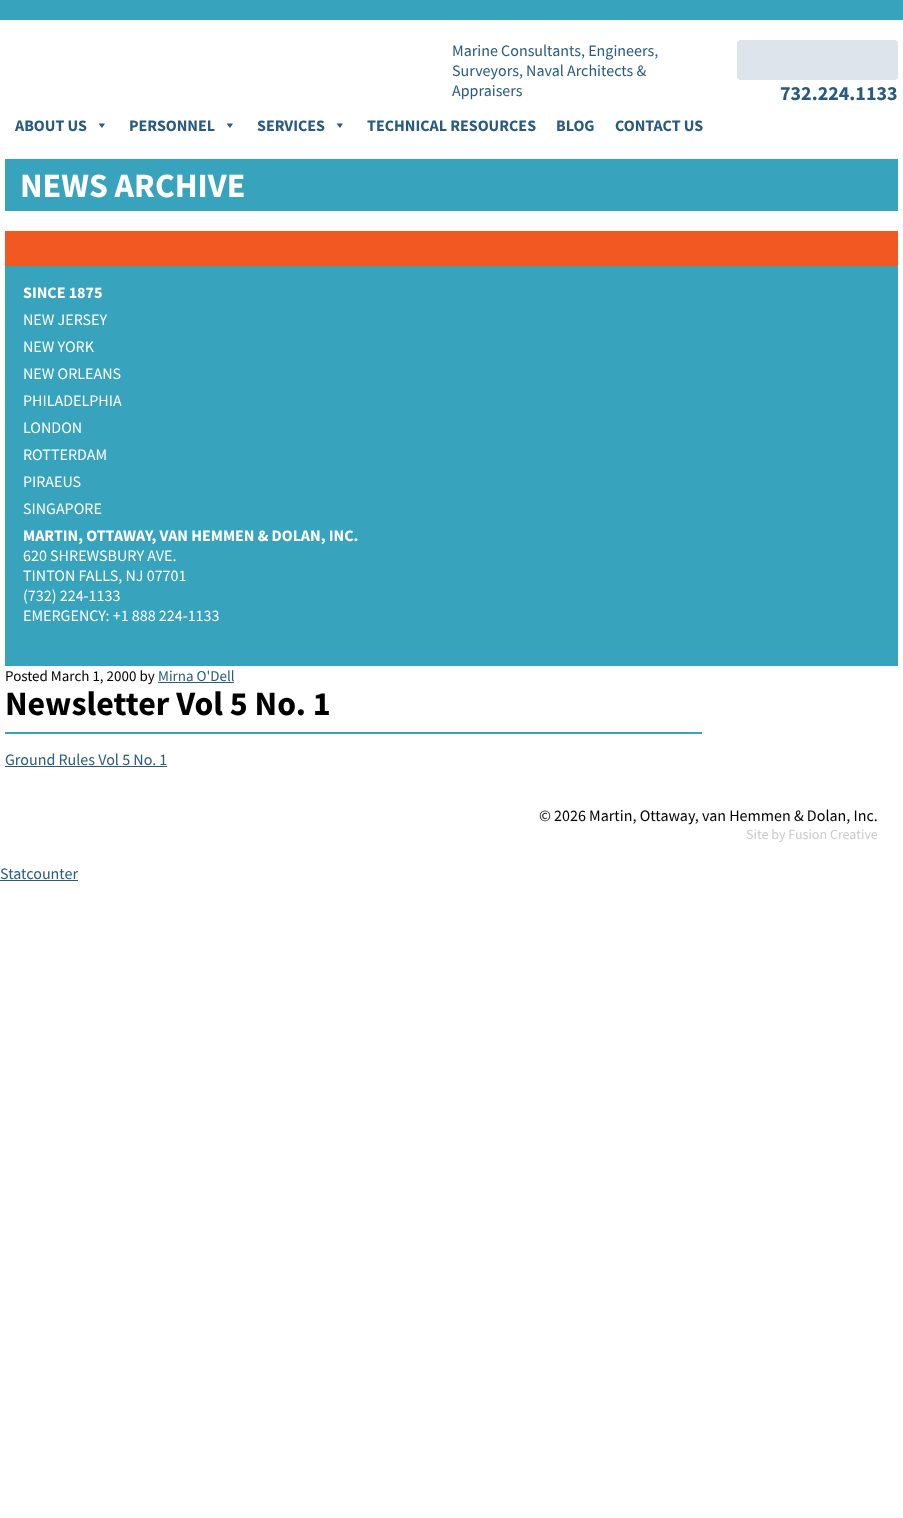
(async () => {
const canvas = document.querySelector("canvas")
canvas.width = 903
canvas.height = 1518
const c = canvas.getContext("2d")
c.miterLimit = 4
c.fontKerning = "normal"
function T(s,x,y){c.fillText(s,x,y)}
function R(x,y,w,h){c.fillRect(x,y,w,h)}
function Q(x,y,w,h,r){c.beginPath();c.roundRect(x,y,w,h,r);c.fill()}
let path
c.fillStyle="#fff"
R(0,0,903,1518)
c.fillStyle="#37a3bd"
R(0,0,903,20)
c.font="16px Source Sans Pro"
c.fillStyle="#295a80"
T("Marine Consultants, Engineers,",452,56)
T("Surveyors, Naval Architects &",452,76)
T("Appraisers",452,96)
c.fillStyle="#dde4eb"
Q(737,40,161,40,4)
c.font="bold 20px Source Sans Pro"
c.fillStyle="#295a80"
T("732.224.1133",780,100)
c.font="bold 16px Source Sans Pro"
T("ABOUT US",15,131)
path = new Path2D("M105 123.5l-3 4.5l-3.5-4.5z")
c.fill(path)
T("PERSONNEL",129,131)
path = new Path2D("M233 123.5l-3 4.5l-3.5-4.5z")
c.fill(path)
T("SERVICES",257,131)
path = new Path2D("M343 123.5l-3 4.5l-3.5-4.5z")
c.fill(path)
T("TECHNICAL RESOURCES",367,131)
T("BLOG",556,131)
T("CONTACT US",615,131)
c.fillStyle="#37a3bd"
R(5,159,893,52)
c.font="bold 34px Source Sans Pro"
c.fillStyle="#fff"
T("NEWS ARCHIVE",20,197)
c.fillStyle="#37a3bd"
R(5,266,893,400)
c.fillStyle="#f15822"
R(5,231,893,35)
c.font="bold 16px Source Sans Pro"
c.fillStyle="#fff"
T("SINCE 1875",23,298)
c.font="16px Source Sans Pro"
T("NEW JERSEY",23,325)
T("NEW YORK",23,352)
T("NEW ORLEANS",23,379)
T("PHILADELPHIA",23,406)
T("LONDON",23,433)
T("ROTTERDAM",23,460)
T("PIRAEUS",23,487)
T("SINGAPORE",23,514)
c.font="bold 16px Source Sans Pro"
T("MARTIN, OTTAWAY, VAN HEMMEN & DOLAN, INC.",23,541)
c.font="16px Source Sans Pro"
T("620 SHREWSBURY AVE.",23,561)
T("TINTON FALLS, NJ 07701",23,581)
T("(732) 224-1133",23,601)
T("EMERGENCY: +1 888 224-1133",23,621)
c.font="15px Source Sans Pro"
c.fillStyle="#000"
T("Posted March 1, 2000 by",5,681)
c.fillStyle="#295a80"
T("Mirna O'Dell",158,681)
R(158,682,76,1)
c.font="bold 34px Source Sans Pro"
c.fillStyle="#000"
T("Newsletter Vol 5 No. 1",5,715)
c.fillStyle="#37a3bd"
R(5,732,697,2)
c.font="16px Source Sans Pro"
c.fillStyle="#295a80"
T("Ground Rules Vol 5 No. 1",5,765)
R(5,766,162,1)
c.fillStyle="#000"
T("© 2026 Martin, Ottaway, van Hemmen & Dolan, Inc.",539,821)
c.font="14px Source Sans Pro"
c.fillStyle="#cbcbcb"
T("Site by Fusion Creative",746,839)
c.font="16px Source Sans Pro"
c.fillStyle="#295a80"
T("Statcounter",0,879)
R(0,880,78,1)
})()
